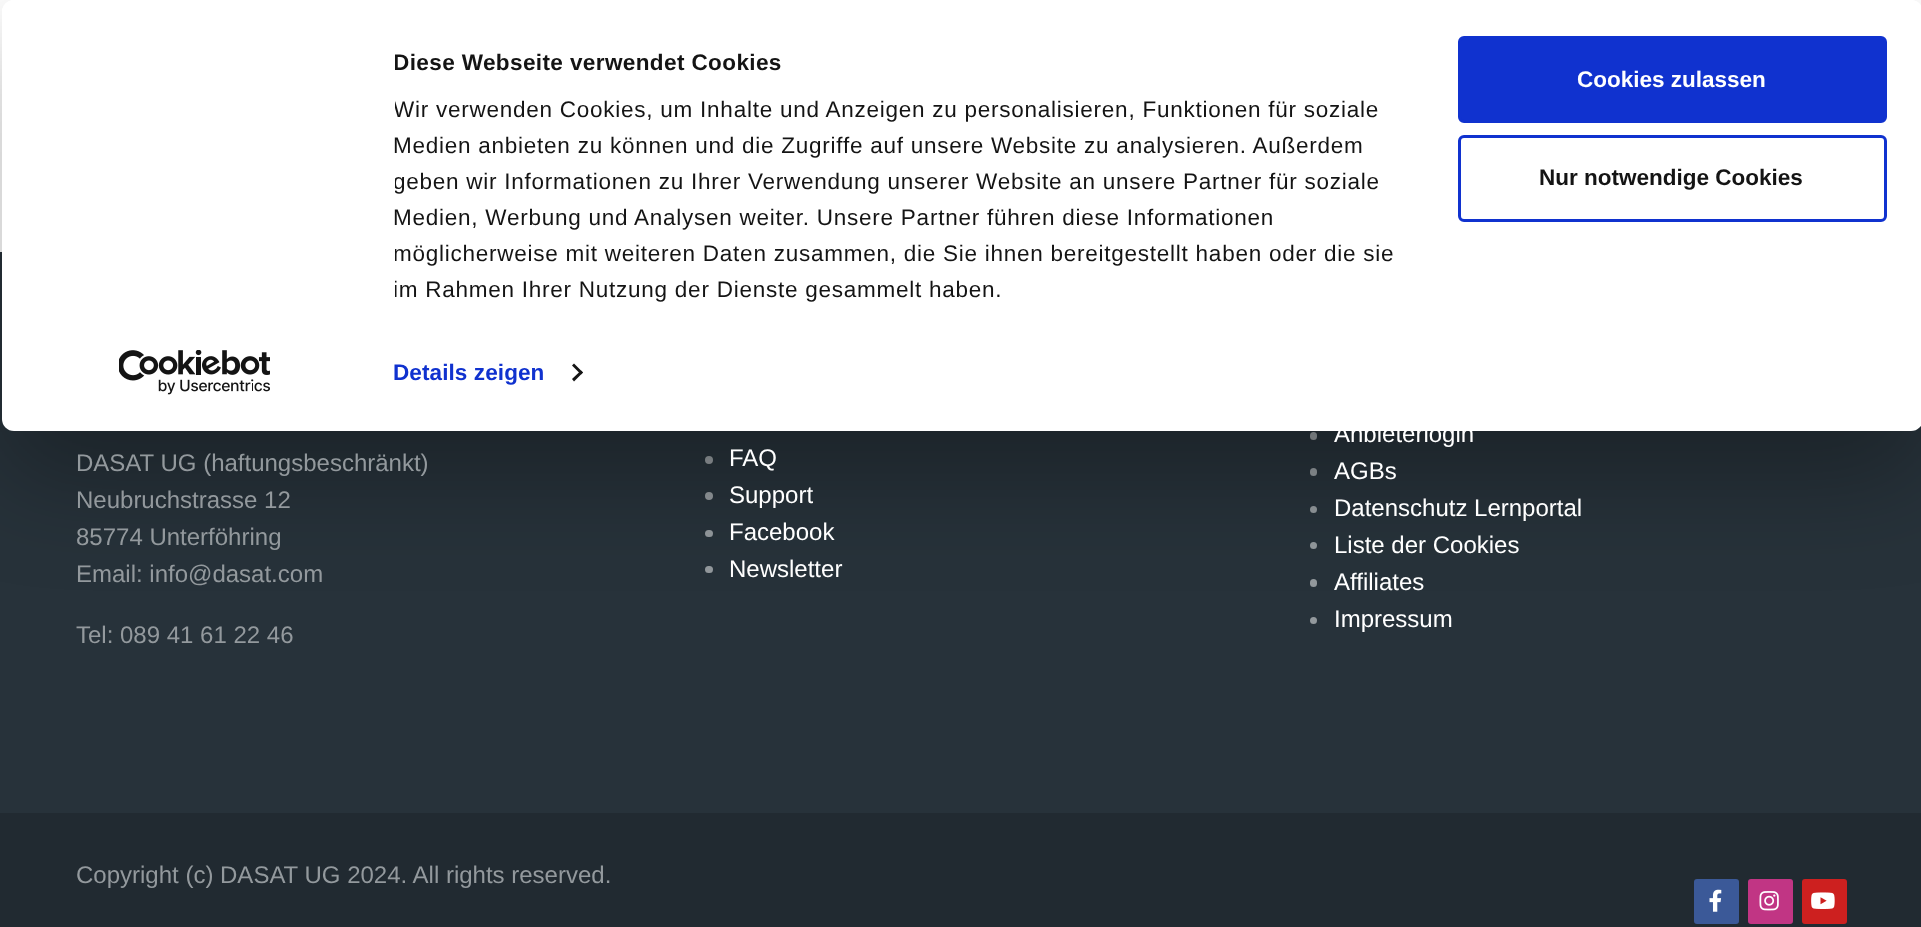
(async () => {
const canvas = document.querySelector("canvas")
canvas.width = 1921
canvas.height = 927
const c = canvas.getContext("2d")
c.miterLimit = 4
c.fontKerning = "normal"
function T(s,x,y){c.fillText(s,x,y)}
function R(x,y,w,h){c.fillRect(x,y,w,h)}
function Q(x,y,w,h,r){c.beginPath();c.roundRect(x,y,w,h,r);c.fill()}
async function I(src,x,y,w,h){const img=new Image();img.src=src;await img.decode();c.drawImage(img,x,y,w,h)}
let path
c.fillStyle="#fff"
R(0,0,1921,927)
c.fillStyle="#27323a"
R(0,252,1921,561)
c.fillStyle="#93999d"
c.beginPath()
c.arc(709,460,4,0,7)
c.fill()
c.beginPath()
c.arc(709,496,4,0,7)
c.fill()
Q(705,530,8,7,3.5)
Q(705,566,8,7,3.5)
Q(1310,432,7,8,3.5)
Q(1310,468,7,8,3.5)
c.beginPath()
c.arc(1313.5,509.5,3.5,0,7)
c.fill()
c.beginPath()
c.arc(1313.5,545.5,3.5,0,7)
c.fill()
Q(1310,579,7,8,3.5)
c.beginPath()
c.arc(1313.5,620.5,3.5,0,7)
c.fill()
c.save()
path = new Path2D("M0 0h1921v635h-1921zm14 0h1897c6.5 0 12 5.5 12 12v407c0 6.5-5.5 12-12 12h-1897c-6.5 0-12-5.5-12-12v-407c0-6.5 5.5-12 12-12z")
c.clip(path,"evenodd")
c.fillStyle="#0000004d"
c.filter="blur(52.5px)"
c.beginPath()
c.roundRect(2,45,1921,431,12)
c.fill()
c.filter="none"
c.restore()
c.fillStyle="#fff"
Q(2,0,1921,431,12)
c.save()
c.beginPath()
c.rect(395,45,1054,263)
c.clip()
c.letterSpacing="0.4px"
c.font="bold 22.5px Liberation Sans"
c.fillStyle="#141414"
T("Diese Webseite verwendet Cookies",393,70)
c.letterSpacing="0.75px"
c.font="22.5px Liberation Sans"
T("Wir verwenden Cookies, um Inhalte und Anzeigen zu personalisieren, Funktionen für soziale",393,117)
c.restore()
c.letterSpacing="0.75px"
c.font="22.5px Liberation Sans"
c.fillStyle="#141414"
T("Medien anbieten zu können und die Zugriffe auf unsere Website zu analysieren. Außerdem",393,153)
c.save()
c.beginPath()
c.rect(395,45,1054,263)
c.clip()
T("geben wir Informationen zu Ihrer Verwendung unserer Website an unsere Partner für soziale",393,189)
c.restore()
T("Medien, Werbung und Analysen weiter. Unsere Partner führen diese Informationen",393,225)
c.save()
c.beginPath()
c.rect(395,45,1054,263)
c.clip()
T("möglicherweise mit weiteren Daten zusammen, die Sie ihnen bereitgestellt haben oder die sie",393,261)
T("im Rahmen Ihrer Nutzung der Dienste gesammelt haben.",393,297)
c.restore()
c.letterSpacing="0.1px"
c.font="bold 22.5px Liberation Sans"
c.fillStyle="#1032cf"
T("Details zeigen",393,380)
c.fillStyle="#141414"
path = new Path2D("M574 363.5l9 9l-2 2l-9-9z")
c.fill(path)
path = new Path2D("M581 370.5l2 2l-9 9l-2-2.5z")
c.fill(path)
c.fillStyle="#1032cf"
c.beginPath()
c.roundRect(1459.5,37.5,426,84,4.5)
c.fill()
c.strokeStyle="#1032cf"
c.lineWidth=3
c.stroke()
c.letterSpacing="0px"
c.fillStyle="#fff"
T("Cookies zulassen",1577,87)
c.beginPath()
c.roundRect(1459.5,136.5,426,84,4.5)
c.stroke()
c.fillStyle="#141414"
T("Nur notwendige Cookies",1539,185)
await I("1.png",119,350,151,45)
c.font="24px Liberation Sans"
c.fillStyle="#93999d"
T("DASAT UG (haftungsbeschränkt)",76,471)
T("Neubruchstrasse 12",76,508)
T("85774 Unterföhring",76,545)
T("Email: info@dasat.com",76,582)
T("Tel: 089 41 61 22 46",76,643)
c.fillStyle="#fff"
T("FAQ",729,466)
T("Support",729,503)
T("Facebook",729,540)
T("Newsletter",729,577)
T("Anbieterlogin",1334,442)
T("AGBs",1334,479)
T("Datenschutz Lernportal",1334,516)
T("Liste der Cookies",1334,553)
T("Affiliates",1334,590)
T("Impressum",1334,627)
c.fillStyle="#212a31"
R(0,813,1921,114)
c.fillStyle="#93999d"
T("Copyright (c) DASAT UG 2024. All rights reserved.",76,883)
c.fillStyle="#3b5998"
Q(1694,879,45,45,3)
await I("2.png",1709,889,13,23)
c.fillStyle="#c13584"
Q(1748,879,45,45,3)
await I("3.png",1759,891,20,20)
c.fillStyle="#cd201f"
Q(1802,879,45,45,3)
await I("4.png",1811,892,24,17)
})()
